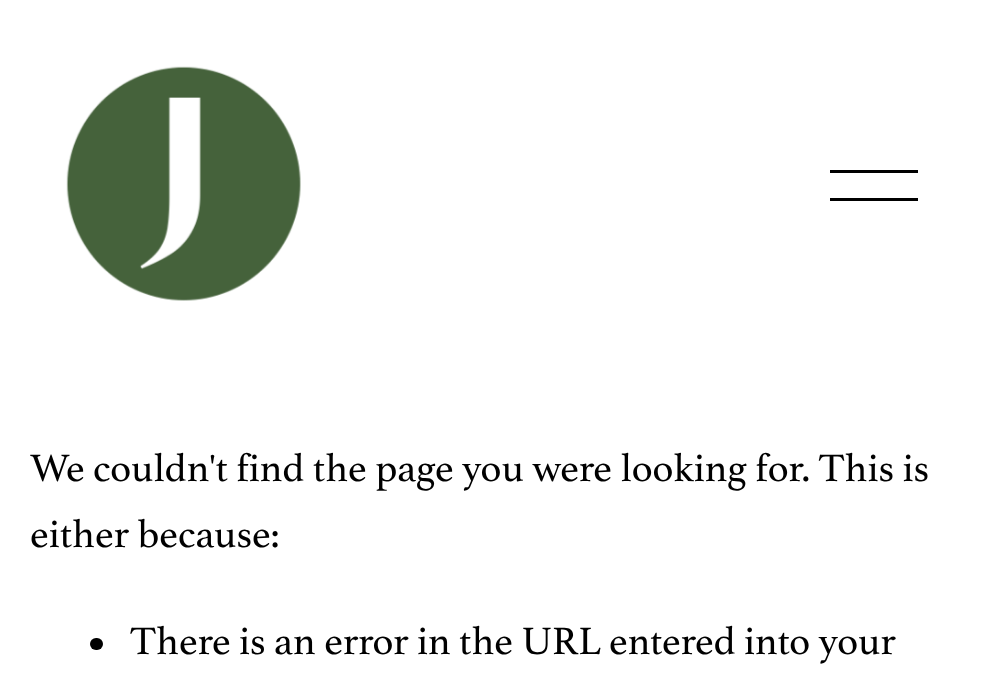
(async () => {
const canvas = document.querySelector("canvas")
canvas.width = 991
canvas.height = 677
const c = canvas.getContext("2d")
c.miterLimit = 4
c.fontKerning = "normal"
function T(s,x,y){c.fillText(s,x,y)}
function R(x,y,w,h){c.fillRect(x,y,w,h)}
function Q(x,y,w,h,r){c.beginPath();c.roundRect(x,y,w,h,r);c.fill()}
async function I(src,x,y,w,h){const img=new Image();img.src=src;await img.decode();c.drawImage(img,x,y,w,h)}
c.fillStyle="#fff"
R(0,0,991,677)
await I("1.png",66,66,235,235)
c.fillStyle="#000"
R(830,170,88,3)
R(830,198,88,3)
c.font="41.2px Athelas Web"
T("We couldn't find the page you were looking for. This is",30,481)
T("either because:",30,547)
Q(90,638,13,12,6)
T("There is an error in the URL entered into your",130,654)
})()
